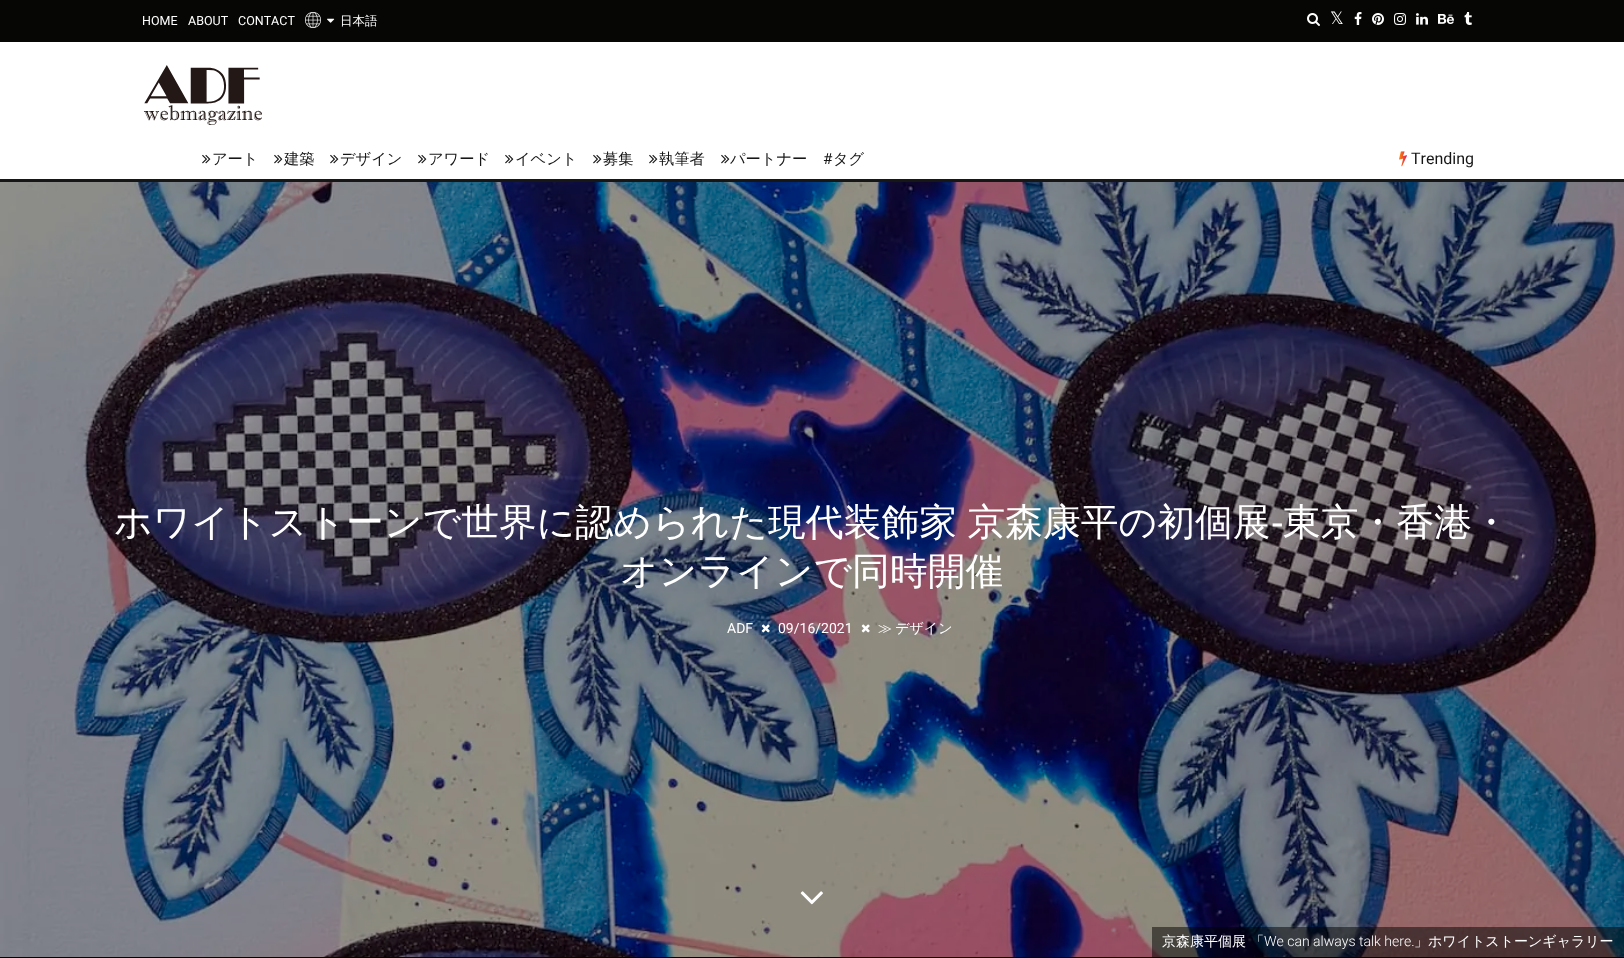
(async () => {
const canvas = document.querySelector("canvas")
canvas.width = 1624
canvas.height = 958
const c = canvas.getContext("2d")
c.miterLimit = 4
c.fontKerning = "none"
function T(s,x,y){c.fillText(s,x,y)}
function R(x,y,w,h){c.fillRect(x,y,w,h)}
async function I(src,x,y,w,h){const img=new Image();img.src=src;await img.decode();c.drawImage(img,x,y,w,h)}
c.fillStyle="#fff"
R(0,0,1624,958)
c.fillStyle="#060605"
R(0,0,1624,42)
c.font="12.5px Roboto"
c.fillStyle="#fff"
T("HOME",142,25)
T("ABOUT",188,25)
T("CONTACT",238,25)
await I("1.png",305,12,16,16)
await I("2.png",327,18,8,5)
c.font="500 12.5px WenQuanYi Zen Hei"
T("日本語",340,25)
await I("3.png",1307,13,13,13)
c.font="17px DejaVu Sans"
T("𝕏",1330,24)
await I("4.png",1354,12,8,13)
await I("5.png",1372,13,12,12)
await I("6.png",1394,13,12,12)
await I("7.png",1416,13,12,12)
await I("8.png",1438,14,16,10)
await I("9.png",1464,12,8,13)
await I("10.png",143,65,119,60)
c.fillStyle="#161616"
R(0,179,1624,3)
await I("11.png",202,154,9,10)
c.font="500 15.25px WenQuanYi Zen Hei"
T("アート",212,164)
await I("11.png",274,154,9,10)
T("建築",284,164)
await I("11.png",330,154,9,10)
T("デザイン",340,164)
await I("11.png",418,154,9,10)
T("アワード",428,164)
await I("11.png",505,154,9,10)
T("イベント",515,164)
await I("11.png",593,154,9,10)
T("募集",603,164)
await I("11.png",649,154,9,10)
T("執筆者",659,164)
await I("11.png",721,154,9,10)
T("パートナー",730,164)
c.font="15.25px Roboto"
T("#",823,164)
c.font="500 15.25px WenQuanYi Zen Hei"
T("タグ",833,164)
await I("12.png",1399,151,8,16)
c.font="16px Roboto"
T("Trending",1411,164)
c.fillStyle="#000"
R(0,182,1624,776)
await I("13.png",0,182,1624,775)
c.wordSpacing="-1px"
c.font="500 37.8px WenQuanYi Zen Hei"
c.fillStyle="#fff"
T("ホワイトストーンで世界に認められた現代装飾家 京森康平の初個展",114,535)
c.wordSpacing="0px"
c.font="37.8px Liberation Sans"
T("-",1271,535)
c.font="500 37.8px WenQuanYi Zen Hei"
T("東京・香港・",1283,535)
T("オンラインで同時開催",620,584)
c.font="14px Roboto"
T("ADF",727,633)
await I("14.png",761,624,9,9)
T("09/16/2021",778,633)
await I("15.png",861,624,9,9)
c.wordSpacing="-1px"
c.font="500 14px WenQuanYi Zen Hei"
T("≫ デザイン",878,633)
await I("16.png",800,891,23,14)
c.fillStyle="#00000080"
R(1152,927,472,30)
c.wordSpacing="0px"
c.fillStyle="#fff"
T("京森康平個展",1162,946)
T("「",1250,946)
c.font="300 14px Roboto"
T("We can always talk here.",1264,946)
c.font="500 14px WenQuanYi Zen Hei"
T("」ホワイトストーンギャラリー",1414,946)
})()
